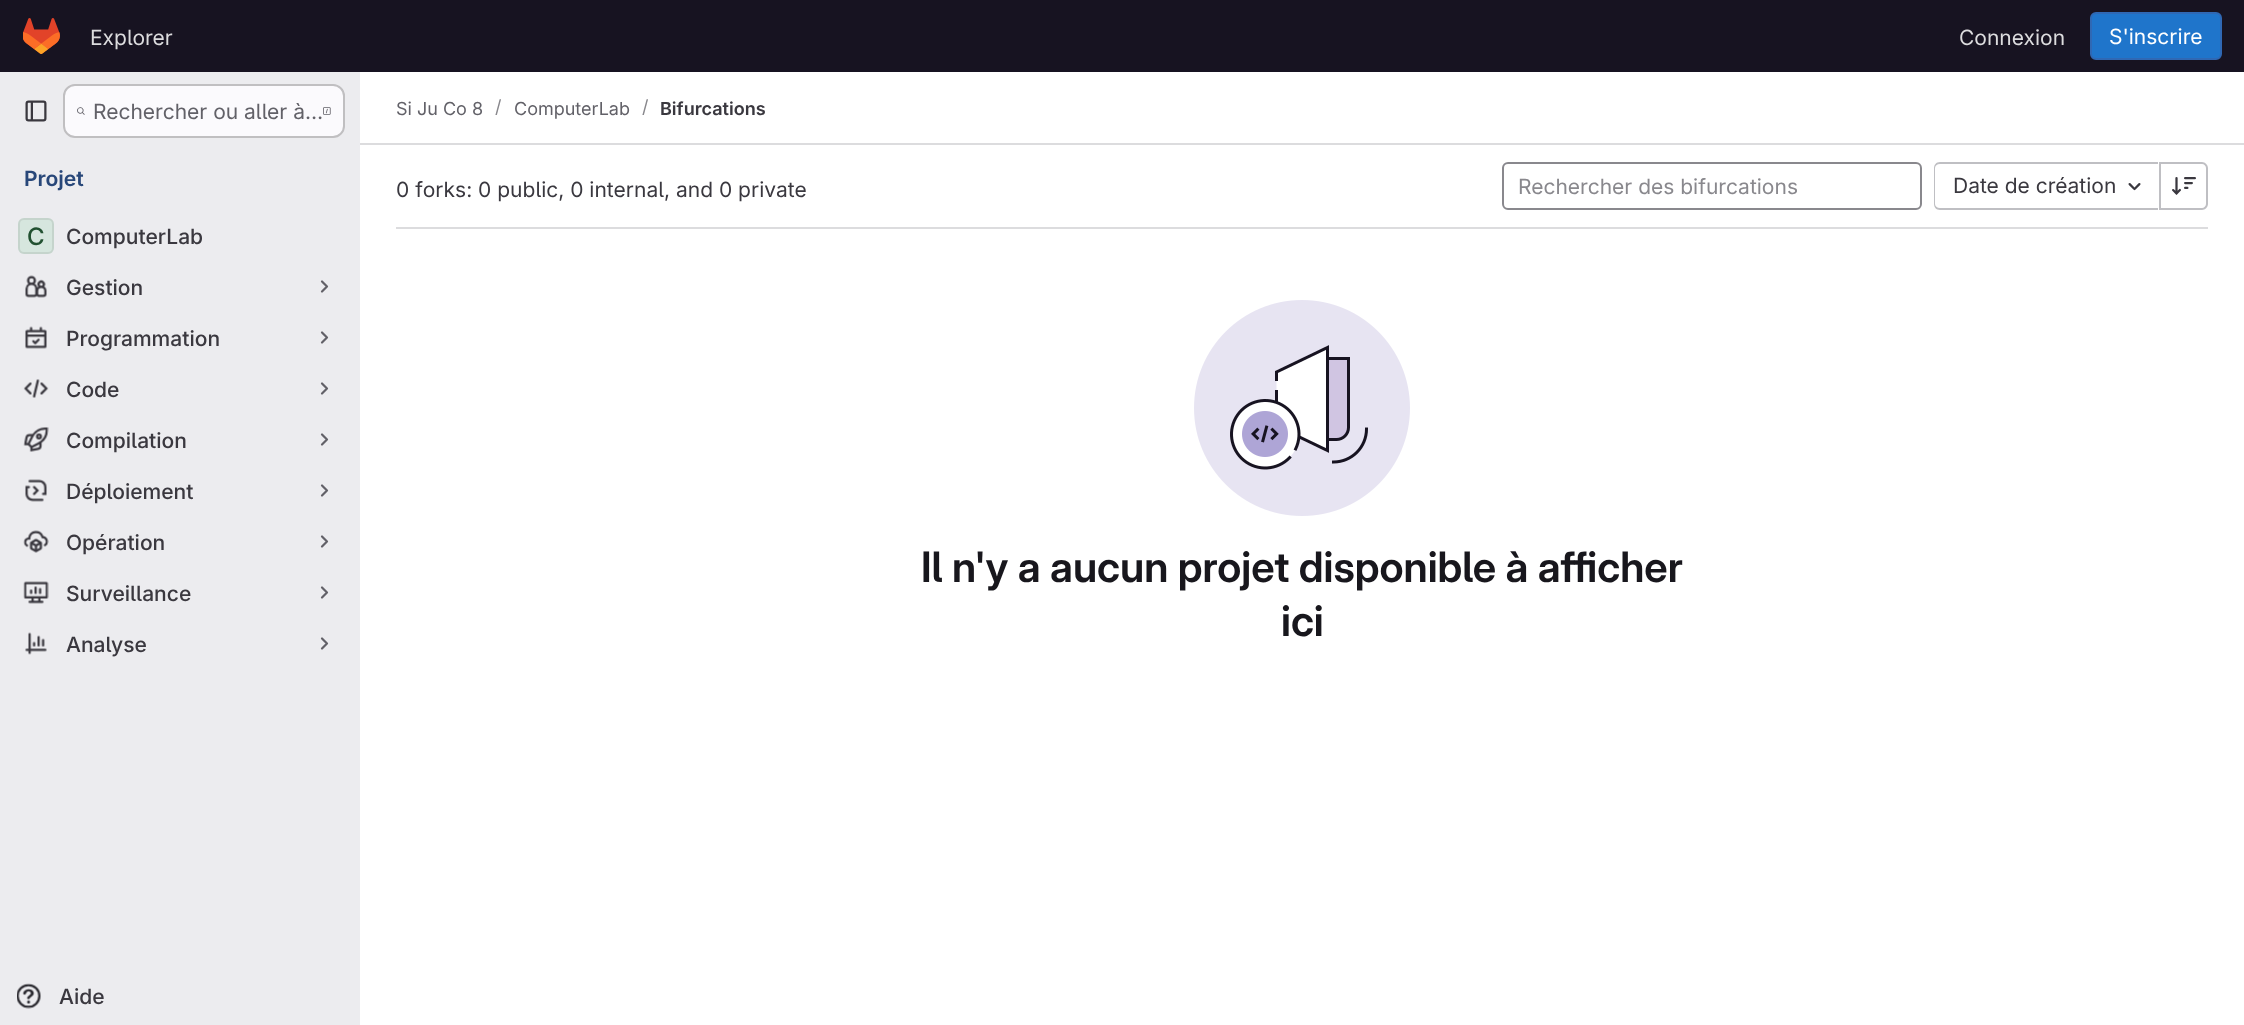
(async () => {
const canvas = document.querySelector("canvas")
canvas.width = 2244
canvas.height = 1025
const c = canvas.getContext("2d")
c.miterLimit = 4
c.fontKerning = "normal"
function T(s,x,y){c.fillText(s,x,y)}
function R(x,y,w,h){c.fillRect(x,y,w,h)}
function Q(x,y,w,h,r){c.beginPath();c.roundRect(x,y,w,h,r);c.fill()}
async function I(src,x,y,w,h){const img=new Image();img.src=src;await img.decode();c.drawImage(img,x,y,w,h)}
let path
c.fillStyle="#fff"
R(0,0,2244,1025)
c.fillStyle="#171321"
R(0,0,2244,72)
await I("1.png",23,18,37,36)
c.font="21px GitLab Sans"
c.fillStyle="#dcdcde"
T("Explorer",90,45)
T("Connexion",1959,45)
c.fillStyle="#1f75cb"
c.beginPath()
c.roundRect(2091,13,130,46,5)
c.fill()
c.strokeStyle="#2f68b4"
c.lineWidth=2
c.stroke()
c.fillStyle="#fff"
T("S'inscrire",2109,44)
c.fillStyle="#ececef"
R(0,72,360,953)
await I("2.png",25,100,22,22)
c.fillStyle="#fbfafd"
Q(63,84,282,54,12)
c.beginPath()
c.roundRect(64,85,280,52,11)
c.strokeStyle="#0505063d"
c.stroke()
await I("3.png",77,107,8,8)
c.fillStyle="#626168"
T("Rechercher ou aller à…",93,119)
await I("4.png",323,107,8,8)
c.font="600 21px 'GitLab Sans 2'"
c.fillStyle="#284779"
T("Projet",24,186)
c.fillStyle="#d6e6de"
Q(18,218,36,36,6)
c.beginPath()
c.roundRect(19,219,34,34,5)
c.strokeStyle="#05050614"
c.stroke()
c.font="500 24px 'GitLab Sans 2'"
c.fillStyle="#225131"
T("C",27,245)
c.font="500 21px GitLab Sans"
c.fillStyle="#3a383f"
T("ComputerLab",66,244)
await I("5.png",25,275,22,23)
T("Gestion",66,295)
path = new Path2D("M322 281.5l5 5l-5 5")
c.strokeStyle="#626168"
c.lineWidth=2.2
c.lineCap="round"
c.lineJoin="round"
c.stroke(path)
await I("6.png",25,326,22,23)
T("Programmation",66,346)
path = new Path2D("M322 332.5l5 5l-5 5")
c.stroke(path)
await I("7.png",23,379,26,19)
T("Code",66,397)
path = new Path2D("M322 383.5l5 5l-5 5")
c.stroke(path)
await I("8.png",23,427,26,25)
T("Compilation",66,448)
path = new Path2D("M322 434.5l5 5l-5 5")
c.stroke(path)
await I("9.png",25,479,22,23)
T("Déploiement",66,499)
path = new Path2D("M322 485.5l5 5l-5 5")
c.stroke(path)
await I("10.png",23,530,26,23)
T("Opération",66,550)
path = new Path2D("M322 536.5l5 5l-5 5")
c.stroke(path)
await I("11.png",23,581,26,23)
T("Surveillance",66,601)
path = new Path2D("M322 587.5l5 5l-5 5")
c.stroke(path)
await I("12.png",25,632,22,23)
T("Analyse",66,652)
path = new Path2D("M322 638.5l5 5l-5 5")
c.stroke(path)
await I("13.png",17,983,24,26)
T("Aide",59,1004)
c.fillStyle="#dcdcde"
R(360,143,1884,2)
c.font="18px GitLab Sans"
c.fillStyle="#626168"
T("Si Ju Co 8",396,115)
c.fillStyle="#89888d"
T("/",495,113)
c.fillStyle="#626168"
T("ComputerLab",514,115)
c.fillStyle="#89888d"
T("/",642,113)
c.font="600 18px 'GitLab Sans 2'"
c.fillStyle="#3a383f"
T("Bifurcations",660,115)
c.fillStyle="#dcdcde"
R(396,227,1812,2)
c.font="21px GitLab Sans"
c.fillStyle="#3a383f"
T("0 forks: 0 public, 0 internal, and 0 private",396,197)
c.beginPath()
c.roundRect(1503,163,418,46,5)
c.strokeStyle="#89888d"
c.lineWidth=2
c.lineJoin="miter"
c.stroke()
c.fillStyle="#89888d"
T("Rechercher des bifurcations",1518,194)
c.fillStyle="#bfbfc3"
path = new Path2D("M1940 162h218v48h-218c-4 0-6-3-6-6v-36c0-3 2-6 6-6zm0 2h218v44h-218c-3 0-5-2-5-4v-36c0-2 2-4 5-4z")
c.fill(path,"evenodd")
c.fillStyle="#3a383f"
T("Date de création",1953,193)
await I("14.png",2128,183,13,8)
c.fillStyle="#bfbfc3"
path = new Path2D("M2160 162h42c3 0 6 3 6 6v36c0 3-3 6-6 6h-42zm0 2h42c2 0 4 2 4 4v36c0 2-2 4-4 4h-42z")
c.fill(path,"evenodd")
R(2159,162,2,48)
await I("15.png",2172,177,24,18)
await I("16.png",1194,300,216,216)
c.font="600 42px GitLab Sans"
c.fillStyle="#18171d"
T("Il n'y a aucun projet disponible à afficher",921,582)
T("ici",1281,636)
})()
